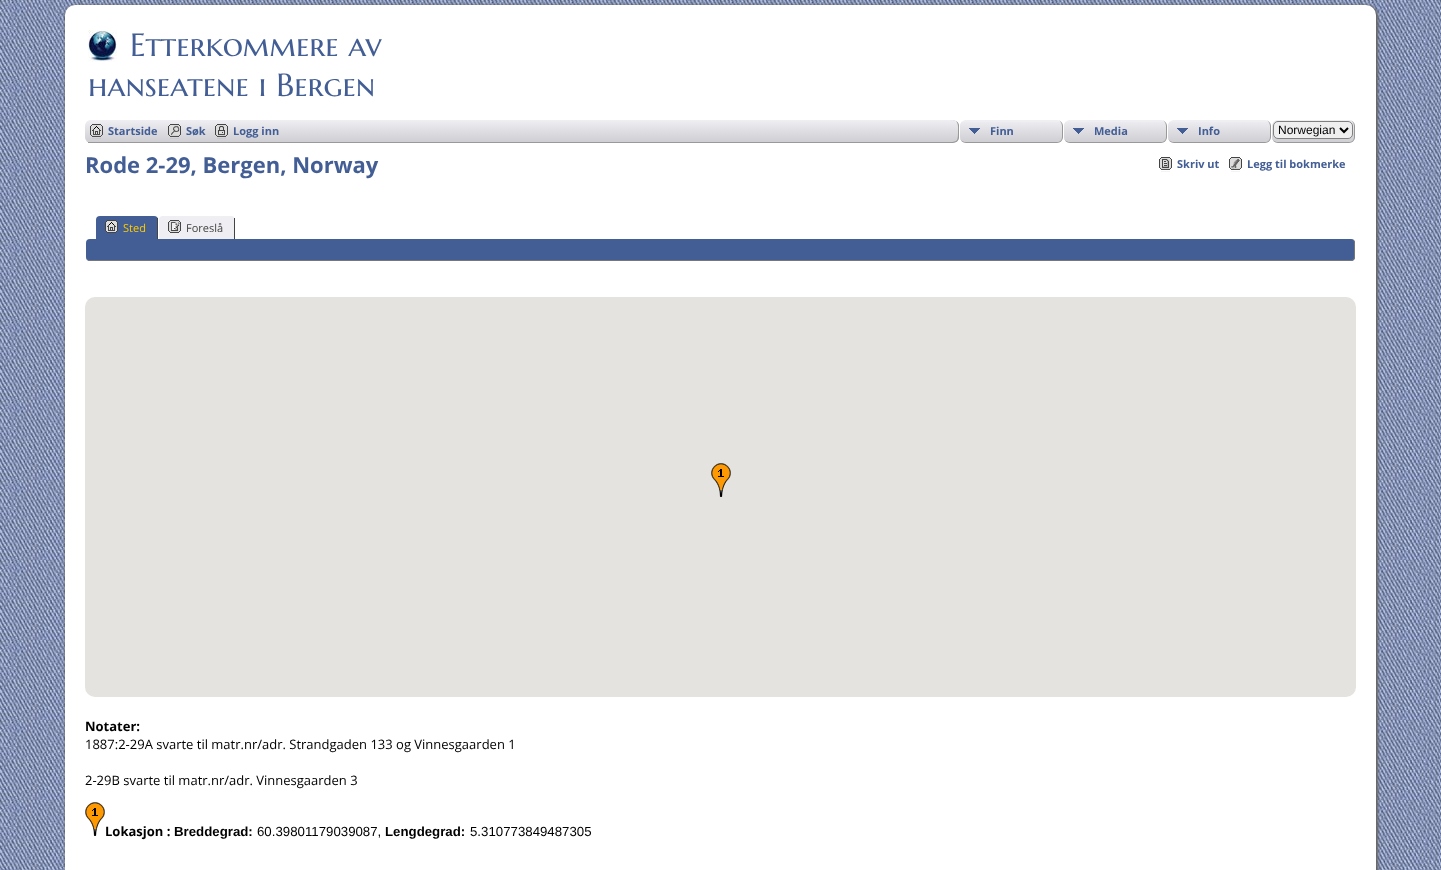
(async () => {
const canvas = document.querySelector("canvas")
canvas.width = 1441
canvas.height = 870
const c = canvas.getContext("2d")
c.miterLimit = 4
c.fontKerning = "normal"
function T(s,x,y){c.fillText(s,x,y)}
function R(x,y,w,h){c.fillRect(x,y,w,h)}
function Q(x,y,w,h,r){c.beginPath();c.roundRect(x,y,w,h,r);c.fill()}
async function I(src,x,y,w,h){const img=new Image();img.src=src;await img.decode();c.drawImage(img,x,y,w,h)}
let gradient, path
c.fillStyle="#fff"
R(0,0,1441,870)
await I("1.png",0,0,1441,870)
c.fillStyle="#666"
c.filter="blur(1px)"
c.beginPath()
c.roundRect(65,5,1313,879,11)
c.fill()
c.filter="none"
c.fillStyle="#fff"
Q(65,5,1311,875,10)
await I("2.png",88,30,29,32)
c.font="32px Marcellus SC"
c.fillStyle="#435e95"
T("Etterkommere av",130,56)
T("hanseatene i Bergen",88,96)
c.fillStyle="#eeeef3"
Q(85,120,1271,23,6)
c.save()
c.beginPath()
c.roundRect(85,120,1271,23,6)
c.clip()
gradient = c.createLinearGradient(721,120,721,142)
gradient.addColorStop(0,"#eeeef3")
gradient.addColorStop(1,"#ceced3")
c.fillStyle = gradient
c.beginPath()
c.roundRect(85,120,1271,22,[6,6,0,0])
c.fill()
c.restore()
c.fillStyle="#999"
R(88,142,860,1)
await I("3.png",90,124,13,15)
c.font="bold 11px Open Sans"
c.fillStyle="#435e95"
T("Startside",108,135)
await I("4.png",168,124,13,15)
T("Søk",186,135)
await I("5.png",215,124,13,15)
T("Logg inn",233,135)
c.fillStyle="#fff"
R(953,120,403,23)
c.save()
c.beginPath()
c.roundRect(948,120,11,23,[0,6,6,0])
c.clip()
gradient = c.createLinearGradient(953,120,953,142)
gradient.addColorStop(0,"#eeeef3")
gradient.addColorStop(1,"#ceced3")
c.fillStyle = gradient
R(948,120,11,22)
gradient = c.createLinearGradient(953,142,953,164)
gradient.addColorStop(0,"#eeeef3")
gradient.addColorStop(1,"#ceced3")
c.fillStyle = gradient
R(948,142,11,1)
c.restore()
c.fillStyle="#999"
path = new Path2D("M948 120c4 0 10-.5 11 5v13c-1 5.5-7 5-11 5zm0 0h6c5 1.5 4 8 4 11.5c0 10-.5 10.5-10 10.5z")
c.fill(path,"evenodd")
c.fillStyle="#eeeef3"
Q(960,120,103,23,6)
await I("6.png",960,122,102,20)
c.fillStyle="#999"
path = new Path2D("M966 120h91c3 0 6 3 6 6v11c0 3-3 6-6 6h-91c-3 0-6-3-6-6v-11c0-3 3-6 6-6zm0 0h91c3 0 5 3 5 6v11c0 3-2 5-5 5h-91c-3 0-6-2-6-5v-11c0-3 3-6 6-6z")
c.fill(path,"evenodd")
c.fillStyle="#435e95"
T("Finn",990,135)
c.fillStyle="#eeeef3"
Q(1064,120,103,23,6)
await I("6.png",1064,122,102,20)
c.fillStyle="#999"
path = new Path2D("M1070 120h91c3 0 6 3 6 6v11c0 3-3 6-6 6h-91c-3 0-6-3-6-6v-11c0-3 3-6 6-6zm0 0h91c3 0 5 3 5 6v11c0 3-2 5-5 5h-91c-3 0-6-2-6-5v-11c0-3 3-6 6-6z")
c.fill(path,"evenodd")
c.fillStyle="#435e95"
T("Media",1094,135)
c.fillStyle="#eeeef3"
Q(1168,120,103,23,6)
await I("6.png",1168,122,102,20)
c.fillStyle="#999"
path = new Path2D("M1174 120h91c3 0 6 3 6 6v11c0 3-3 6-6 6h-91c-3 0-6-3-6-6v-11c0-3 3-6 6-6zm0 0h91c3 0 5 3 5 6v11c0 3-2 5-5 5h-91c-3 0-6-2-6-5v-11c0-3 3-6 6-6z")
c.fill(path,"evenodd")
c.fillStyle="#435e95"
T("Info",1198,135)
c.fillStyle="#eeeef3"
Q(1272,120,83,23,6)
c.save()
c.beginPath()
c.roundRect(1272,120,83,23,6)
c.clip()
gradient = c.createLinearGradient(1313,120,1313,142)
gradient.addColorStop(0,"#eeeef3")
gradient.addColorStop(1,"#ceced3")
c.fillStyle = gradient
c.beginPath()
c.roundRect(1272,120,83,22,[6,6,0,0])
c.fill()
c.restore()
c.fillStyle="#999"
path = new Path2D("M1278 120h71c3 0 6 3 6 6v11c0 3-3 6-6 6h-71c-3 0-6-3-6-6v-11c0-3 3-6 6-6zm0 0h71c3 0 5 3 5 6v11c0 3-2 5-5 5h-71c-3 0-6-2-6-5v-11c0-3 3-6 6-6z")
c.fill(path,"evenodd")
c.fillStyle="#efefef"
c.beginPath()
c.roundRect(1273.5,121.5,79,17,4.5)
c.fill()
c.strokeStyle="#808080"
c.stroke()
path = new Path2D("M1340 128l4 4l4-4")
c.strokeStyle="#000"
c.lineWidth=2
c.stroke(path)
c.font="12px Liberation Sans"
c.fillStyle="#000"
T("Norwegian",1278,134)
c.font="bold 22px Open Sans"
c.fillStyle="#435e95"
T("Rode 2-29, Bergen, Norway",85,173)
await I("7.png",1159,157,13,15)
c.font="bold 11px Open Sans"
T("Skriv ut",1177,168)
await I("8.png",1229,157,13,15)
T("Legg til bokmerke",1247,168)
c.beginPath()
c.roundRect(96,216,62,23,[4,4,0,0])
c.fill()
c.fillStyle="#444"
R(157,218,1,21)
await I("9.png",105,220,13,13)
c.font="11px Open Sans"
c.fillStyle="#fc0"
T("Sted",123,232)
c.fillStyle="#eeeef3"
c.beginPath()
c.roundRect(159,216,76,23,[4,4,0,0])
c.fill()
c.fillStyle="#444"
R(234,218,1,21)
await I("10.png",168,220,13,13)
T("Foreslå",186,232)
c.fillStyle="#435e95"
Q(86,239,1269,22,4)
c.fillStyle="#777"
path = new Path2D("M90 239h1261c2 0 4 2 4 4v14c0 2-2 4-4 4h-1261c-2 0-4-2-4-4v-14c0-2 2-4 4-4zm0 0h1261c2 0 3 2 3 4v14c0 2-1 3-3 3h-1261c-2 0-4-1-4-3v-14c0-2 2-4 4-4z")
c.fill(path,"evenodd")
c.fillStyle="#e5e3df"
Q(85,297,1271,400,10)
await I("11.png",711,463,20,34)
c.font="bold 13px Open Sans"
c.fillStyle="#000"
T("Notater:",85,731)
c.font="13px Open Sans"
T("1887:2-29A svarte til matr.nr/adr. Strandgaden 133 og Vinnesgaarden 1",85,749)
T("2-29B svarte til matr.nr/adr. Vinnesgaarden 3",85,785)
await I("12.png",85,802,20,34)
c.font="bold 13px Open Sans"
T("Lokasjon :",105,836)
c.font="bold 13.25px Liberation Sans"
T("Breddegrad:",174,836)
c.font="13.25px Liberation Sans"
T("60.39801179039087,",257,836)
c.font="bold 13.25px Liberation Sans"
T("Lengdegrad:",385,836)
c.font="13.25px Liberation Sans"
T("5.310773849487305",470,836)
})()
